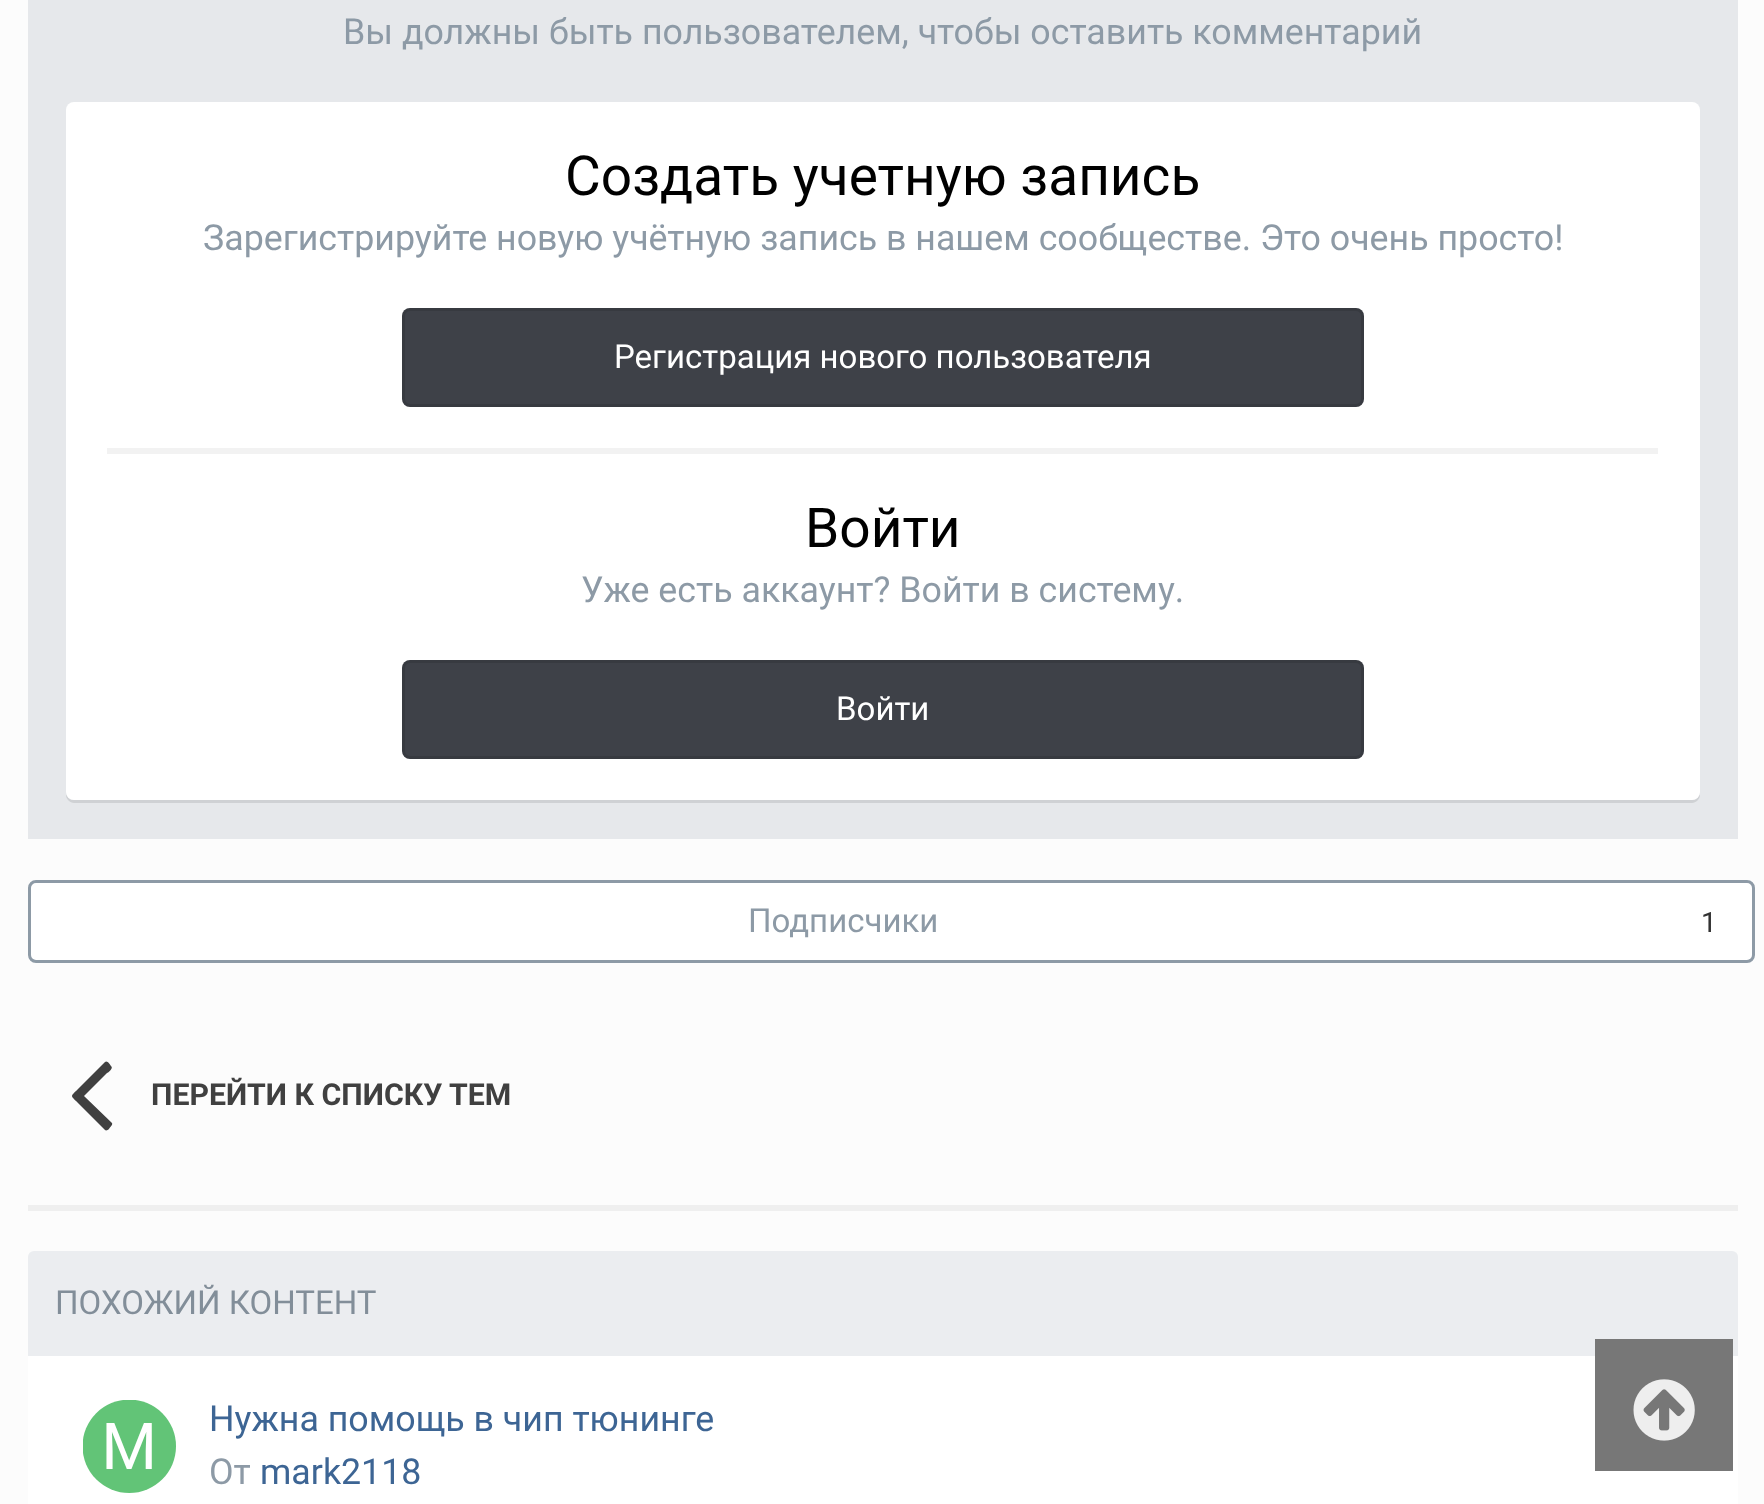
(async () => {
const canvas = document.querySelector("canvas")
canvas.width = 1764
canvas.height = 1504
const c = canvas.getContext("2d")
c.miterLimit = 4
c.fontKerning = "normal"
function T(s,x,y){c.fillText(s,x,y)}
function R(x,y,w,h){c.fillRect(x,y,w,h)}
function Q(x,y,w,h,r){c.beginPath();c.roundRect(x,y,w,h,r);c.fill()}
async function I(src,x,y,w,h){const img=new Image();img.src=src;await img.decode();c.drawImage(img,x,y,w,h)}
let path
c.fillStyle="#fcfcfc"
R(0,0,1764,1504)
c.fillStyle="#e6e8eb"
R(28,0,1710,839)
c.font="35.75px Roboto"
c.fillStyle="#8d9aa6"
T("Вы должны быть пользователем, чтобы оставить комментарий",343,44)
c.fillStyle="#cfd1d4"
path = new Path2D("M66 792v3c0 4 4 8 8 8h1618c4 0 8-4 8-8v-682v-3v682c0 5-4 8-9 8h-1617c-4 0-8-3-8-8z")
c.fill(path)
c.fillStyle="#fff"
Q(66,102,1634,698,8)
c.fillStyle="#f2f2f2"
R(107,448,1551,6)
c.font="55px Roboto"
c.fillStyle="#000"
T("Создать учетную запись",565,195)
c.font="35.75px Roboto"
c.fillStyle="#8d9aa6"
T("Зарегистрируйте новую учётную запись в нашем сообществе. Это очень просто!",203,250)
c.fillStyle="#3e4148"
Q(402,308,962,99,8)
c.beginPath()
c.roundRect(403.5,309.5,959,96,6.5)
c.strokeStyle="#0000001a"
c.lineWidth=3
c.stroke()
c.font="33px Roboto"
c.fillStyle="#fff"
T("Регистрация нового пользователя",614,368)
c.font="55px Roboto"
c.fillStyle="#000"
T("Войти",805,547)
c.font="35.75px Roboto"
c.fillStyle="#8d9aa6"
T("Уже есть аккаунт? Войти в систему.",581,602)
c.fillStyle="#3e4148"
Q(402,660,962,99,8)
c.beginPath()
c.roundRect(403.5,661.5,959,96,6.5)
c.stroke()
c.font="33px Roboto"
c.fillStyle="#fff"
T("Войти",836,720)
c.beginPath()
c.roundRect(29.5,881.5,1724,80,6.5)
c.fill()
c.strokeStyle="#8d9aa6"
c.stroke()
c.fillStyle="#8d9aa6"
T("Подписчики",748,932)
c.font="28px Roboto"
c.fillStyle="#333"
T("1",1701,932)
c.fillStyle="#404040"
path = new Path2D("M111 1066c3 2-3 7-4 7l-23 23l28 27c1 2-2 4-3 6c-1 1-3 2-4 1l-27-27c-8-8-8-6 0-14l27-27c2-2 5 2 6 4z")
c.fill(path)
c.font="bold 30.25px Roboto"
T("ПЕРЕЙТИ К СПИСКУ ТЕМ",151,1105)
c.fillStyle="#efefef"
R(28,1205,1710,6)
c.fillStyle="#fff"
Q(28,1251,1710,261,8)
c.fillStyle="#ebedf0"
c.beginPath()
c.roundRect(28,1251,1710,105,[6,6,0,0])
c.fill()
c.font="33px Roboto"
c.fillStyle="#828e99"
T("ПОХОЖИЙ КОНТЕНТ",55,1314)
await I("1.png",83,1400,93,93)
c.font="35.75px Roboto"
c.fillStyle="#3d6594"
T("Нужна помощь в чип тюнинге",209,1431)
c.fillStyle="#8d9aa6"
T("От",209,1484)
c.fillStyle="#3d6594"
T("mark2118",260,1484)
c.fillStyle="#777"
R(1595,1339,138,132)
await I("2.png",1633,1379,62,62)
})()
